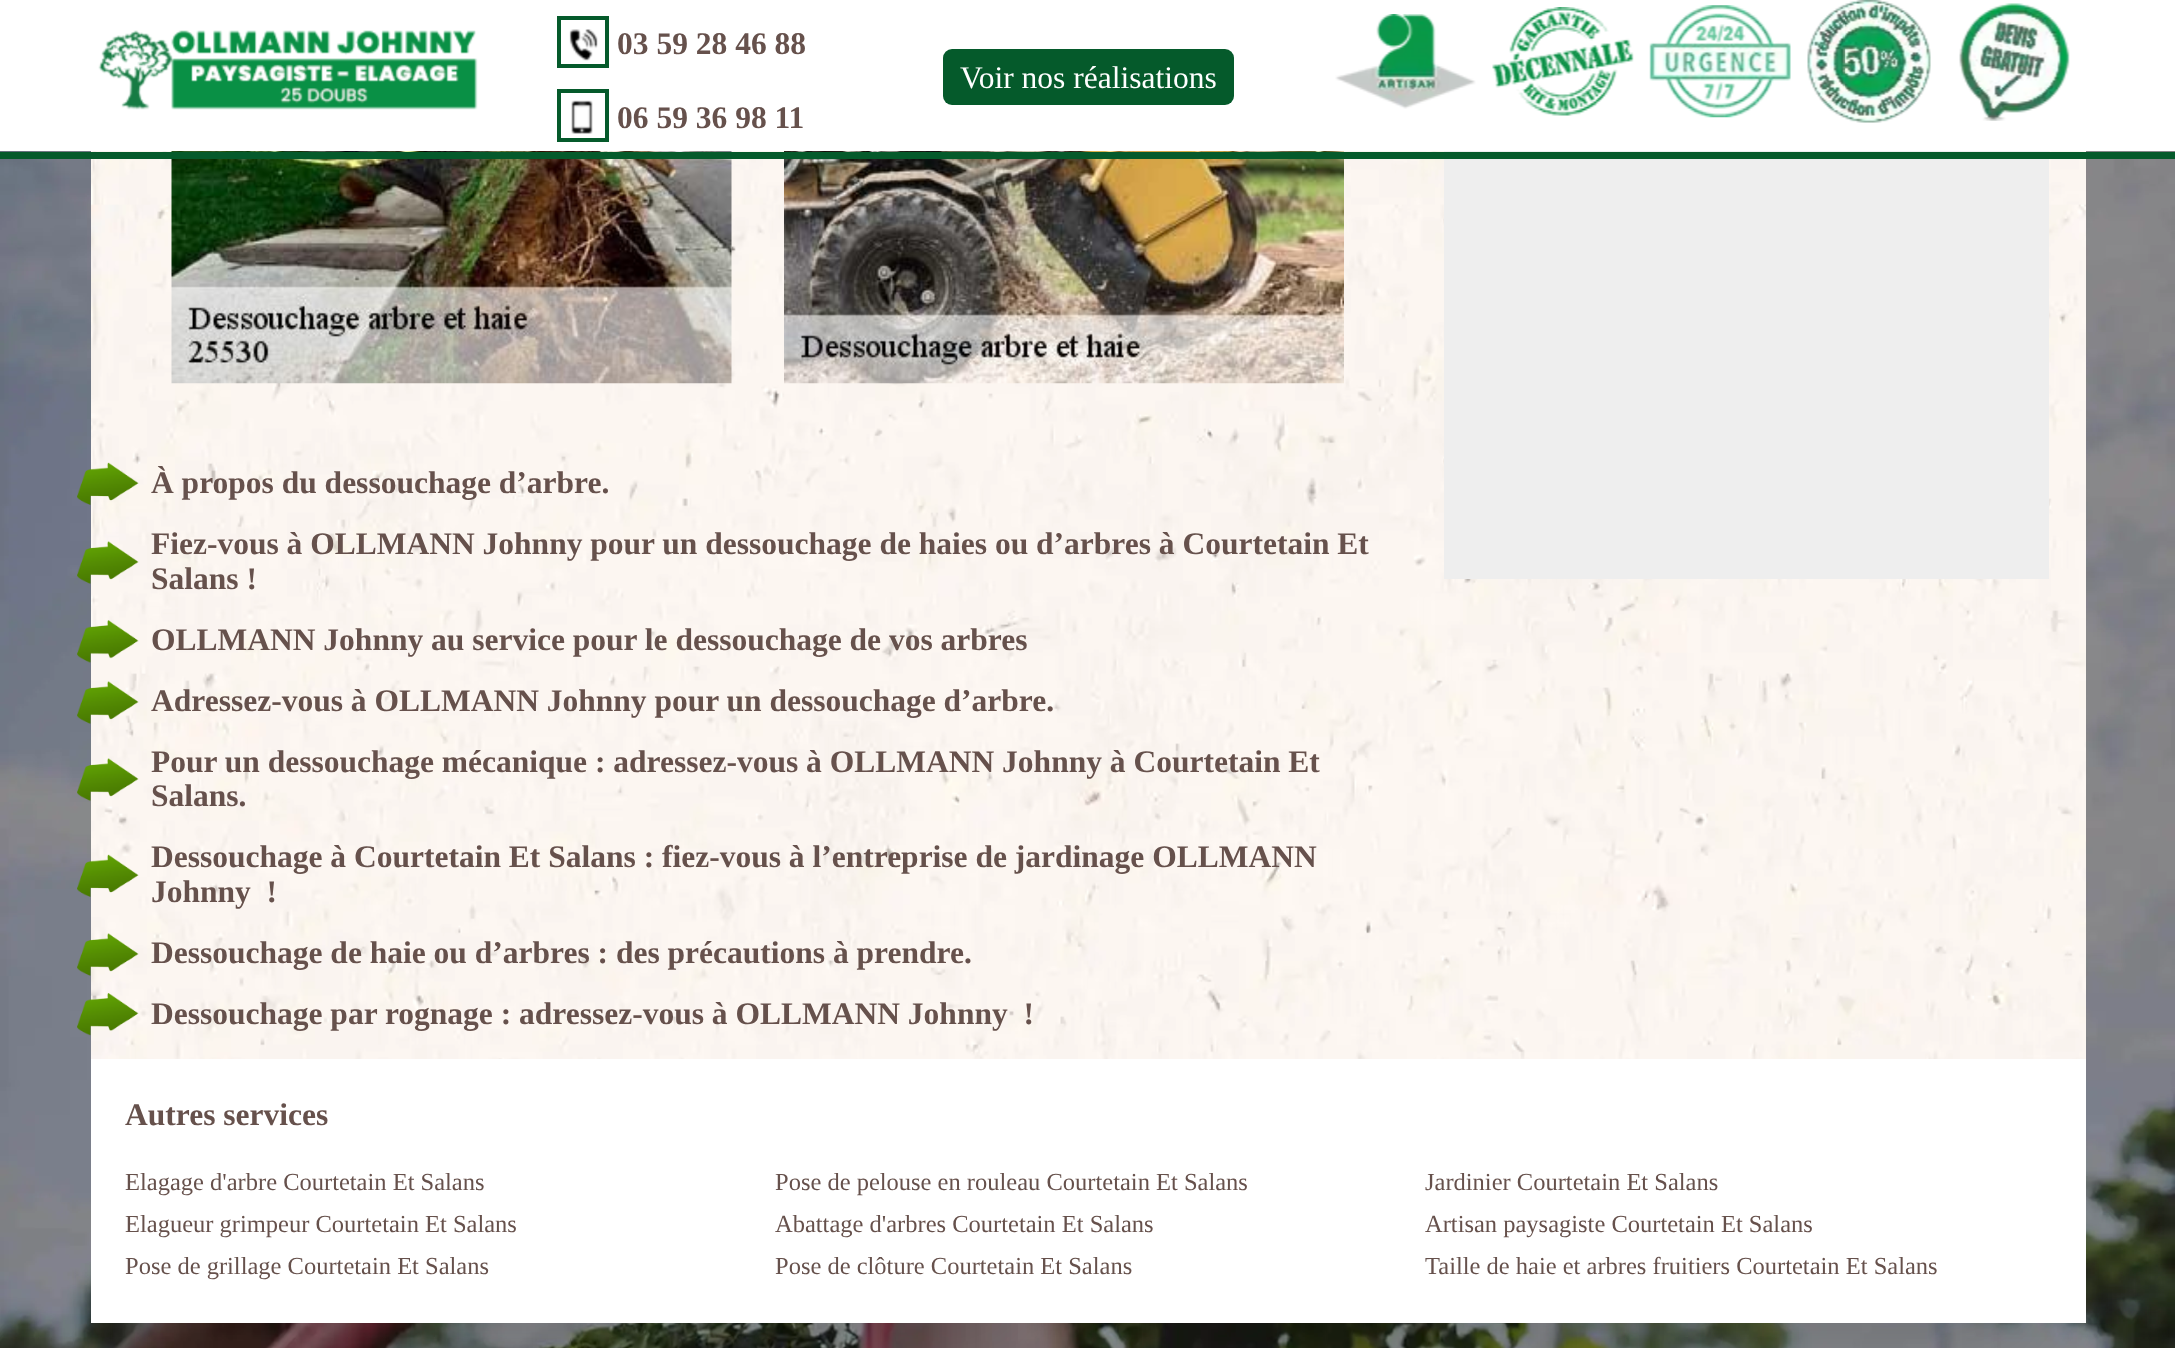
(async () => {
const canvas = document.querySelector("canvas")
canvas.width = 2175
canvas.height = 1348
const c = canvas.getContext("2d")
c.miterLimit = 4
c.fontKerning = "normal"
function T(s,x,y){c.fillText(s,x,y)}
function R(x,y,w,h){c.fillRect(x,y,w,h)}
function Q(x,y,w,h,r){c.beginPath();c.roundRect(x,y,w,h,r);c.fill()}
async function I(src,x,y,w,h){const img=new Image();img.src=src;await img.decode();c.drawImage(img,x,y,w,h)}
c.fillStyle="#fff"
R(0,0,2175,1348)
await I("1.png",0,151,2175,1197)
await I("2.png",98,30,380,80)
c.strokeStyle="#055a2b"
c.lineWidth=4
c.strokeRect(559,18,48,48)
await I("3.png",569,29,29,32)
c.font="bold 31.5px Liberation Serif"
c.fillStyle="#66514c"
T("03 59 28 46 88",617,54)
c.strokeRect(559,91,48,49)
await I("4.png",571,100,22,34)
T("06 59 36 98 11",617,128)
c.fillStyle="#055a2b"
Q(943,49,291,56,9)
c.font="31.5px Liberation Serif"
c.fillStyle="#fff"
T("Voir nos réalisations",960,88)
await I("5.png",1335,14,141,95)
await I("6.png",1492,7,142,109)
await I("7.png",1649,5,142,113)
await I("8.png",1807,0,124,123)
await I("9.png",1959,3,111,118)
await I("10.png",91,151,1995,908)
c.fillStyle="#eee"
R(1444,151,605,428)
await I("11.png",171,151,561,233)
await I("12.png",784,151,560,233)
c.fillStyle="#055a2b"
R(0,152,2175,7)
await I("13.png",77,462,62,43)
c.font="bold 31.5px Liberation Serif"
c.fillStyle="#66514c"
T("À propos du dessouchage d’arbre.",151,493)
await I("14.png",77,541,62,43)
T("Fiez-vous à OLLMANN Johnny pour un dessouchage de haies ou d’arbres à Courtetain Et",151,554)
T("Salans !",151,589)
await I("15.png",77,620,62,43)
T("OLLMANN Johnny au service pour le dessouchage de vos arbres",151,650)
await I("16.png",77,681,62,43)
T("Adressez-vous à OLLMANN Johnny pour un dessouchage d’arbre.",151,711)
await I("17.png",77,758,62,43)
T("Pour un dessouchage mécanique : adressez-vous à OLLMANN Johnny à Courtetain Et",151,772)
T("Salans.",151,806)
await I("18.png",77,854,62,43)
T("Dessouchage à Courtetain Et Salans : fiez-vous à l’entreprise de jardinage OLLMANN",151,867)
T("Johnny  !",151,902)
await I("19.png",77,933,62,43)
T("Dessouchage de haie ou d’arbres : des précautions à prendre.",151,963)
await I("20.png",77,993,62,43)
T("Dessouchage par rognage : adressez-vous à OLLMANN Johnny  !",151,1024)
c.fillStyle="#fff"
R(91,1059,1995,264)
c.fillStyle="#66514c"
T("Autres services",125,1125)
c.font="24.5px Liberation Serif"
T("Elagage d'arbre Courtetain Et Salans",125,1190)
T("Pose de pelouse en rouleau Courtetain Et Salans",775,1190)
T("Jardinier Courtetain Et Salans",1425,1190)
T("Elagueur grimpeur Courtetain Et Salans",125,1232)
T("Abattage d'arbres Courtetain Et Salans",775,1232)
T("Artisan paysagiste Courtetain Et Salans",1425,1232)
T("Pose de grillage Courtetain Et Salans",125,1274)
T("Pose de clôture Courtetain Et Salans",775,1274)
T("Taille de haie et arbres fruitiers Courtetain Et Salans",1425,1274)
c.save()
c.beginPath()
c.rect(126,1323,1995,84)
c.clip()
c.fillStyle="#000000b3"
c.filter="blur(44px)"
c.beginPath()
c.rect(224,1292,798,17)
c.fill()
c.filter="none"
c.filter="blur(44px)"
c.beginPath()
c.rect(1223,1292,798,17)
c.fill()
c.filter="none"
c.restore()
})()
